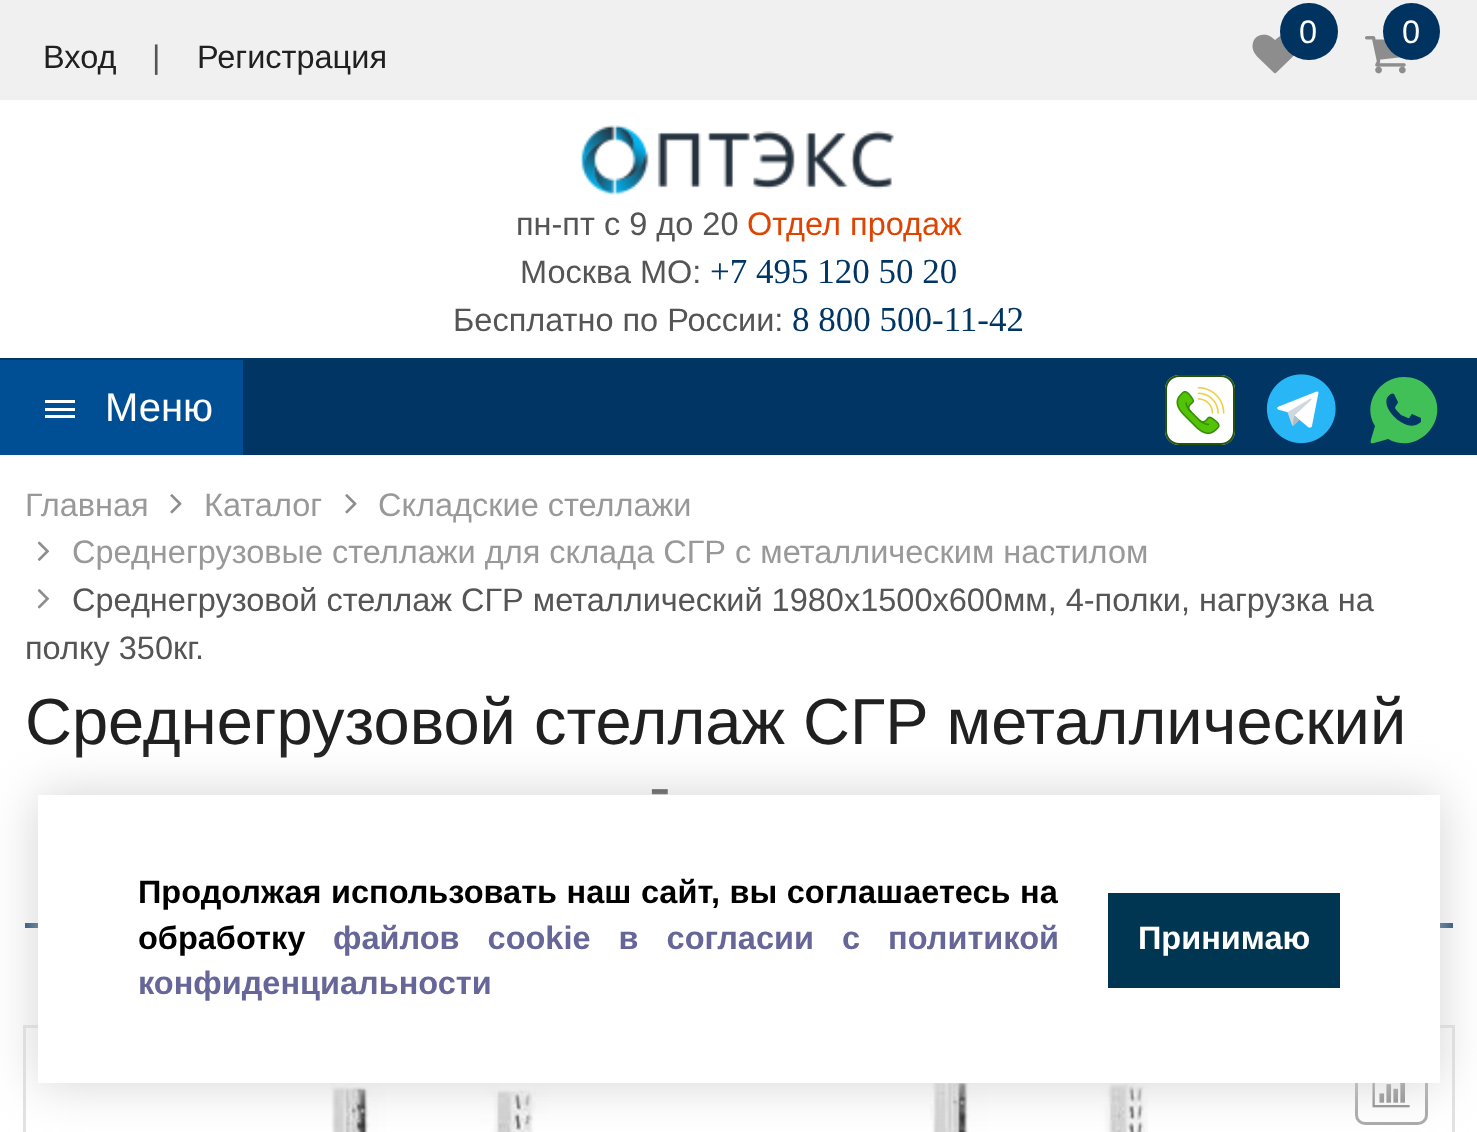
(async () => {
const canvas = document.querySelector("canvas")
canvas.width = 1477
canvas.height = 1132
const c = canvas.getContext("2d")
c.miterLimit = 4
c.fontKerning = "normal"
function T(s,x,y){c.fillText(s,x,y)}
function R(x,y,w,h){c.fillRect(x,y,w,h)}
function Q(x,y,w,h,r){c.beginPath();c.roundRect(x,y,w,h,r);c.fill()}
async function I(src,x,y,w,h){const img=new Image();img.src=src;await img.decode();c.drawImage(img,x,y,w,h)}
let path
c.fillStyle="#fff"
R(0,0,1477,1132)
c.save()
path = new Path2D("M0 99h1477v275h-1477zm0 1h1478v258h-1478z")
c.clip(path,"evenodd")
c.fillStyle="#d2d2d2"
c.filter="blur(2.5px)"
c.beginPath()
c.rect(0,108,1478,257)
c.fill()
c.filter="none"
c.restore()
c.fillStyle="#f0f0f0"
R(0,0,1477,100)
await I("1.png",1252,34,42,40)
c.fillStyle="#013360"
Q(1280,3,58,57,28.5)
c.font="32.5px Liberation Sans"
c.fillStyle="#fff"
T("0",1299,43)
await I("2.png",1365,36,41,38)
c.fillStyle="#013360"
c.beginPath()
c.arc(1411.5,31.5,28.5,0,7)
c.fill()
c.fillStyle="#fff"
T("0",1402,43)
c.fillStyle="#202020"
T("Вход",43,68)
c.fillStyle="#555"
T("|",152,68)
c.fillStyle="#202020"
T("Регистрация",197,68)
await I("3.png",580,125,314,70)
c.fillStyle="#555"
T("пн-пт с 9 до 20",516,235)
c.fillStyle="#de4402"
T("Отдел продаж",747,235)
c.fillStyle="#555"
T("Москва МО:",520,283)
c.font="35px Liberation Serif"
c.fillStyle="#013563"
T("+7 495 120 50 20",710,283)
c.font="32.5px Liberation Sans"
c.fillStyle="#555"
T("Бесплатно по России:",453,331)
c.font="35px Liberation Serif"
c.fillStyle="#013563"
T("8 800 500-11-42",792,331)
R(0,358,1477,2)
R(243,360,1234,95)
c.fillStyle="#004f94"
R(0,360,243,95)
c.fillStyle="#fff"
R(45,400,30,3)
R(45,408,30,3)
R(45,415,30,3)
c.font="40px Liberation Sans"
T("Меню",105,421)
await I("4.png",1165,375,70,70)
await I("5.png",1266,374,70,70)
c.fillStyle="#40c057"
path = new Path2D("M1404 377c-26 0-42 28-29 49c-6 22-9 19 13 13c33 18 67-25 39-53c-6-6-14-9-23-9m17 45l-3 2c-12 8-36-14-31-26c1-2 5-6 7-4l4 8c0 2-3 4-3 6c1 2 4 5 6 7l7 3c2 1 3-4 4-4l9 4v1v3")
c.fill(path)
c.font="32.5px Liberation Sans"
c.fillStyle="#999"
T("Главная",25,516)
await I("6.png",170,494,12,20)
T("Каталог",204,516)
await I("6.png",345,494,12,20)
T("Складские стеллажи",378,516)
await I("7.png",37,541,13,20)
T("Среднегрузовые стеллажи для склада СГР с металлическим настилом",72,563)
await I("8.png",37,589,13,20)
c.fillStyle="#555"
T("Среднегрузовой стеллаж СГР металлический 1980х1500х600мм, 4-полки, нагрузка на",72,611)
T("полку 350кг.",25,659)
c.fillStyle="#013563"
R(25,923,1428,5)
c.font="65px Liberation Sans"
c.fillStyle="#202020"
T("Среднегрузовой стеллаж СГР металлический",25,744)
T("-",649,809)
c.strokeStyle="#e2e2e2"
c.lineWidth=3
c.strokeRect(24.5,1026.5,1429,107)
await I("9.png",331,1083,817,49)
c.beginPath()
c.roundRect(1356.5,1054.5,70,69,8.5)
c.strokeStyle="#a9a9a9"
c.stroke()
await I("10.png",1372,1083,38,25)
c.fillStyle="#d3d3d3"
c.filter="blur(25px)"
c.beginPath()
c.rect(38,795,1402,288)
c.fill()
c.filter="none"
c.fillStyle="#fff"
R(38,795,1402,288)
c.wordSpacing="0.5px"
c.font="bold 32.5px Liberation Sans"
c.fillStyle="#000"
T("Продолжая использовать наш сайт, вы соглашаетесь на",138,903)
c.wordSpacing="0px"
T("обработку",138,949)
c.wordSpacing="19px"
c.fillStyle="#669"
T("файлов cookie в согласии с политикой",333,949)
c.wordSpacing="0px"
T("конфиденциальности",138,994)
c.fillStyle="#013653"
R(1108,893,232,95)
c.fillStyle="#fff"
T("Принимаю",1138,949)
})()
